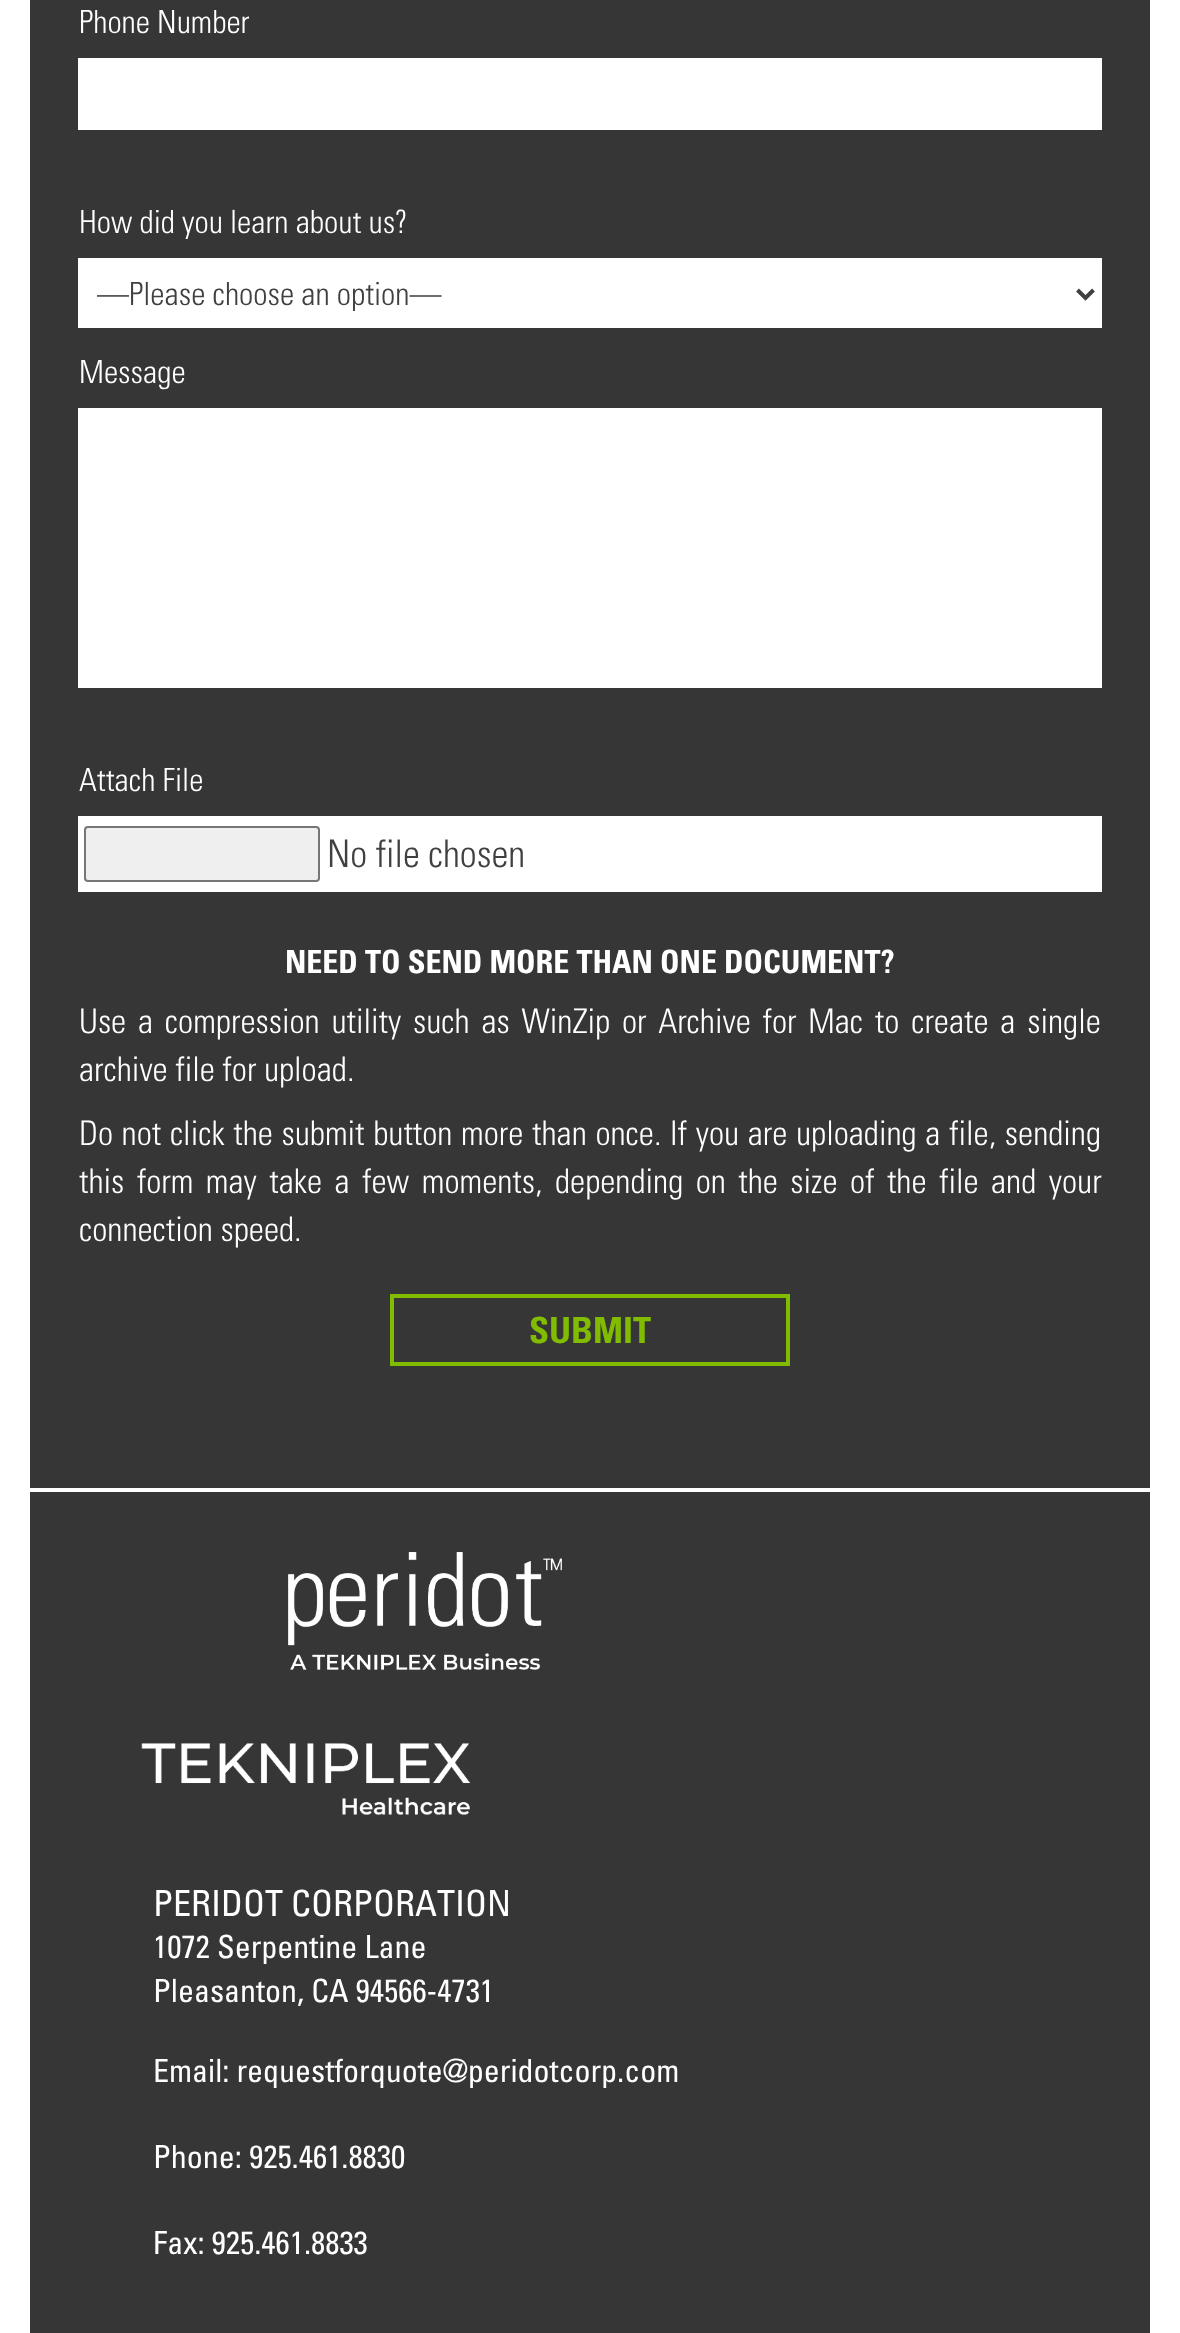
(async () => {
const canvas = document.querySelector("canvas")
canvas.width = 1180
canvas.height = 2333
const c = canvas.getContext("2d")
c.miterLimit = 4
c.fontKerning = "normal"
function T(s,x,y){c.fillText(s,x,y)}
function R(x,y,w,h){c.fillRect(x,y,w,h)}
async function I(src,x,y,w,h){const img=new Image();img.src=src;await img.decode();c.drawImage(img,x,y,w,h)}
let path
c.fillStyle="#fff"
R(0,0,1180,2333)
c.fillStyle="#363636"
R(30,0,1120,1488)
c.font="300 32px 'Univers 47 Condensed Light'"
c.fillStyle="#fff"
T("Phone Number",79,33)
R(78,58,1024,72)
T("How did you learn about us?",79,233)
R(78,258,1024,70)
path = new Path2D("M1077.5 290l8 8l8-8")
c.strokeStyle="#404040"
c.lineWidth=4
c.stroke(path)
c.fillStyle="#404040"
T("—Please choose an option—",97,305)
c.fillStyle="#fff"
T("Message",79,383)
R(78,408,1024,280)
T("Attach File",79,791)
R(78,816,1024,76)
c.fillStyle="#efefef"
c.beginPath()
c.roundRect(85,827,234,54,3)
c.fill()
c.strokeStyle="#767676"
c.lineWidth=2
c.stroke()
c.font="300 38px 'Univers 47 Condensed Light'"
c.fillStyle="#404040"
T("No file chosen",327,867)
c.font="bold 32px Univers"
c.fillStyle="#fff"
T("NEED TO SEND MORE THAN ONE DOCUMENT?",285,973)
c.wordSpacing="4.25px"
c.font="300 34px 'Univers 47 Condensed Light'"
T("Use a compression utility such as WinZip or Archive for Mac to create a single",79,1033)
c.wordSpacing="0px"
T("archive file for upload.",79,1081)
c.wordSpacing="1.1px"
T("Do not click the submit button more than once. If you are uploading a file, sending",79,1145)
c.wordSpacing="4.9px"
T("this form may take a few moments, depending on the size of the file and your",79,1193)
c.wordSpacing="0px"
T("connection speed.",79,1241)
c.strokeStyle="#81bc00"
c.lineWidth=4
c.strokeRect(392,1296,396,68)
c.font="bold 36px Univers"
c.fillStyle="#81bc00"
T("SUBMIT",529,1343)
c.fillStyle="#363636"
R(30,1492,1120,841)
await I("1.png",288,1552,274,118)
await I("2.png",141,1743,330,72)
c.font="500 36px Univers"
c.fillStyle="#fff"
T("PERIDOT CORPORATION",153,1916)
c.font="500 32px Univers"
T("1072 Serpentine Lane",153,1958)
T("Pleasanton, CA 94566-4731",153,2002)
T("Email: requestforquote@peridotcorp.com",153,2082)
T("Phone: 925.461.8830",153,2168)
T("Fax: 925.461.8833",153,2254)
})()
